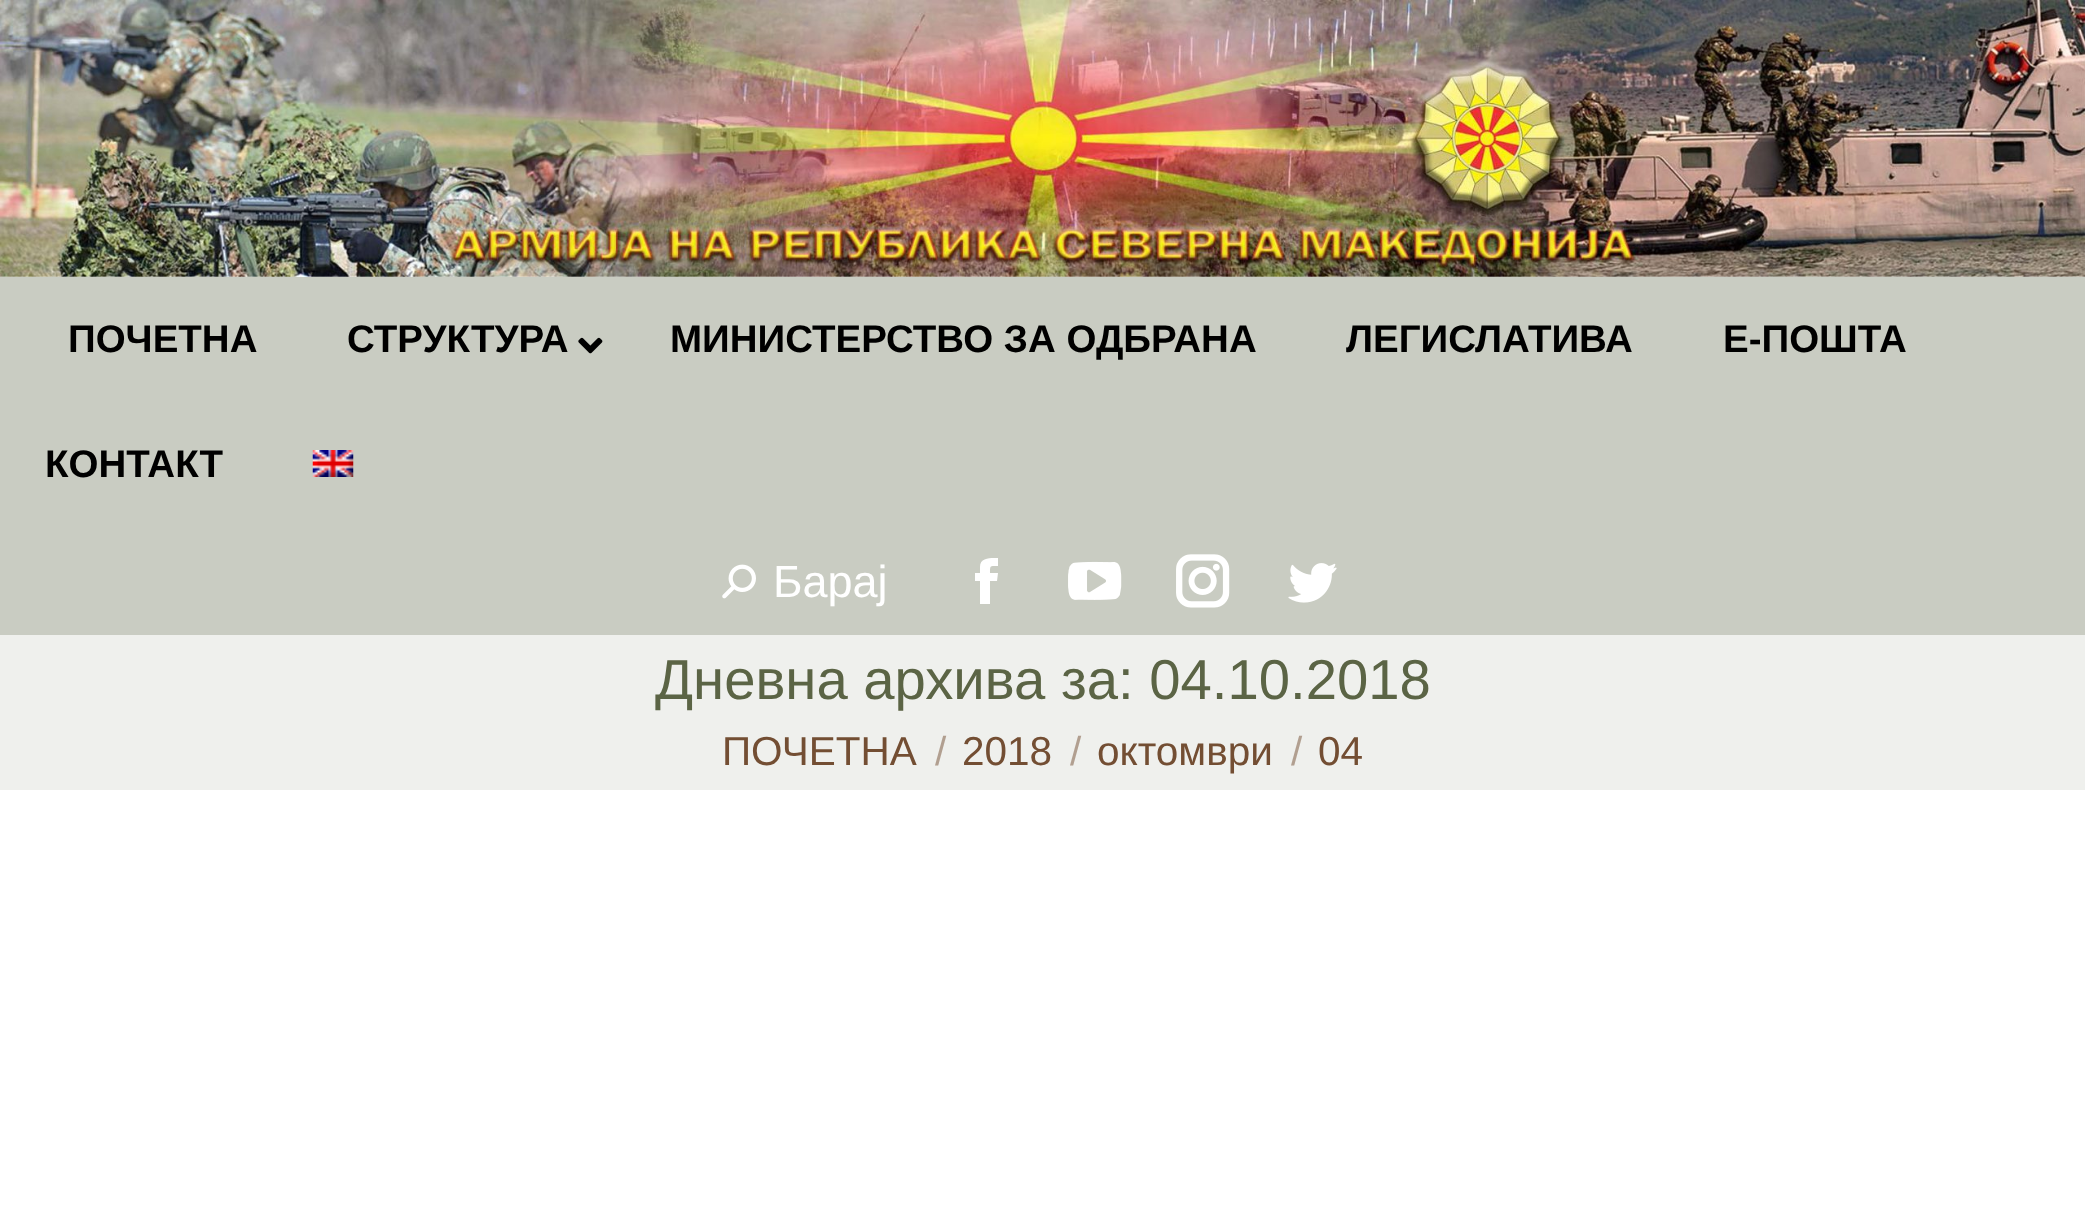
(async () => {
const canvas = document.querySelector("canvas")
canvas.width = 2085
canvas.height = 1230
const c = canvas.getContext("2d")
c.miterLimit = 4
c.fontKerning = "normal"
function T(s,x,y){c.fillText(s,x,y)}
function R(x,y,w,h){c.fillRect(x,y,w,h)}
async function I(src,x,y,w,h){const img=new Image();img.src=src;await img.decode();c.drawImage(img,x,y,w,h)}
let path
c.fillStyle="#fff"
R(0,0,2085,1230)
await I("1.png",0,0,2085,277)
c.fillStyle="#c9ccc2"
R(0,277,2085,358)
c.font="bold 38.5px Liberation Sans"
c.fillStyle="#000"
T("ПОЧЕТНА",68,352)
T("СТРУКТУРА",347,352)
await I("2.png",578,337,25,17)
T("МИНИСТЕРСТВО ЗА ОДБРАНА",670,352)
T("ЛЕГИСЛАТИВА",1346,352)
T("Е-ПОШТА",1723,352)
T("КОНТАКТ",45,477)
await I("3.png",312,450,42,27)
await I("4.png",722,564,34,35)
c.font="45px Liberation Sans"
c.fillStyle="#fff"
T("Барај",773,597)
path = new Path2D("M980 567c0-10 11-9 18-9v8c-8 0-8-1-8 7h8l-1 8h-7v23h-10v-23h-5v-8h5z")
c.fill(path)
await I("5.png",1068,561,54,39)
await I("6.png",1176,554,54,54)
await I("7.png",1288,563,49,40)
c.fillStyle="#eff0ed"
R(0,635,2085,155)
c.font="56.25px Liberation Sans"
c.fillStyle="#5b6445"
T("Дневна архива за: 04.10.2018",655,699)
c.font="40.5px Liberation Sans"
c.fillStyle="#734e33"
T("ПОЧЕТНА",722,765)
c.fillStyle="#b19f90"
T("/",935,765)
c.fillStyle="#734e33"
T("2018",962,765)
c.fillStyle="#b19f90"
T("/",1070,765)
c.fillStyle="#734e33"
T("октомври",1097,765)
c.fillStyle="#b19f90"
T("/",1291,765)
c.fillStyle="#734e33"
T("04",1318,765)
})()
